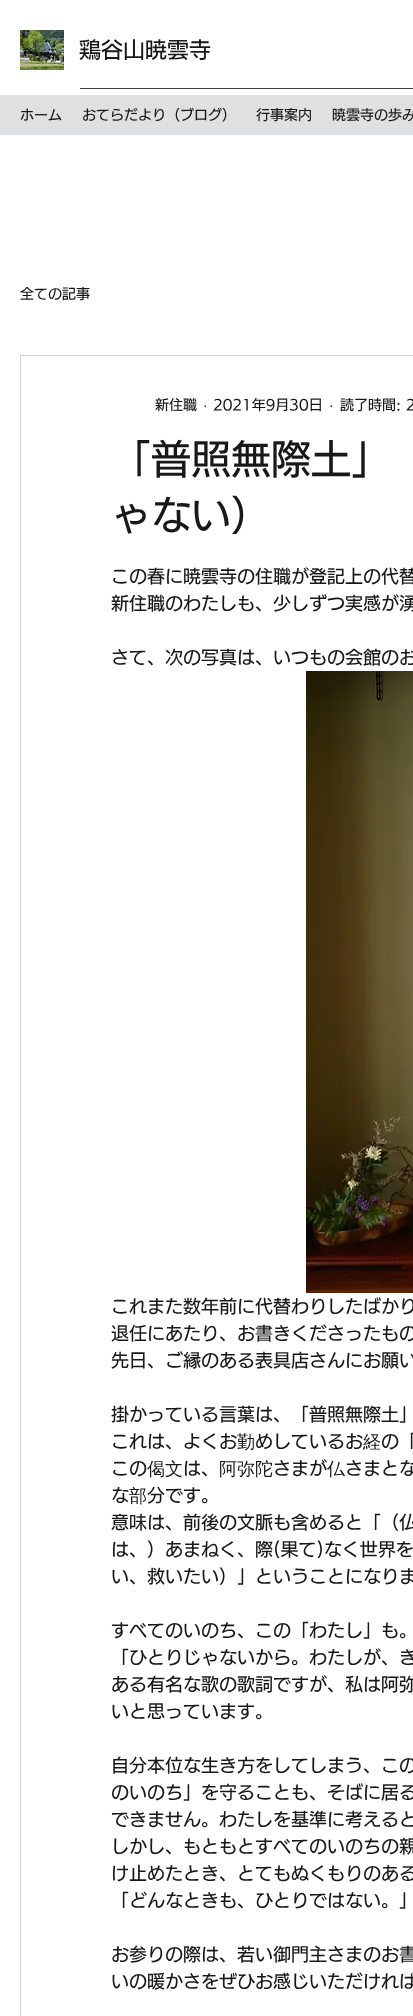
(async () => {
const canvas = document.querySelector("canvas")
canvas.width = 413
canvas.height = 2016
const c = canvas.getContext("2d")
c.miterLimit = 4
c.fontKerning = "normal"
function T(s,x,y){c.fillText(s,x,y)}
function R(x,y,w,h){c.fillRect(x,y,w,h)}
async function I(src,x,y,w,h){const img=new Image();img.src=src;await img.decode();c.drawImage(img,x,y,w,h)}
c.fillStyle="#fff"
R(0,0,413,2016)
await I("1.png",20,30,44,40)
c.font="500 22px 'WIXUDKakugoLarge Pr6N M'"
c.fillStyle="#181818"
T("鶏谷山暁雲寺",79,58)
c.fillStyle="#3b3b3b"
R(80,88,333,1)
c.fillStyle="#dfe0e2"
R(0,95,413,40)
c.font="500 14px 'WIXUDKakugoLarge Pr6N M'"
c.fillStyle="#181818"
T("ホーム",20,120)
T("おてらだより（ブログ）",82,120)
T("行事案内",256,120)
T("暁雲寺の歩み",332,120)
T("全ての記事",20,299)
c.strokeStyle="#d4d4d4"
c.strokeRect(20.5,355.5,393,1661)
T("新住職",155,410)
c.font="14px Liberation Sans"
T("·",203,410)
c.font="500 14px 'WIXUDKakugoLarge Pr6N M'"
T("2021年9月30日",213,410)
c.font="14px Liberation Sans"
T("·",329,410)
c.font="500 14px 'WIXUDKakugoLarge Pr6N M'"
T("読了時間: 2",340,410)
c.font="500 40px 'WIXUDKakugoLarge Pr6N M'"
T("「普照無際土」",111,474)
T("ゃない）",111,530)
c.font="500 18px 'WIXUDKakugoLarge Pr6N M'"
T("この春に暁雲寺の住職が登記上の代替",111,583)
T("新住職のわたしも、少しずつ実感が湧",111,610)
T("さて、次の写真は、いつもの会館のお",111,664)
await I("2.png",306,671,107,622)
T("これまた数年前に代替わりしたばかり",111,1313)
T("退任にあたり、お書きくださったもの",111,1340)
T("先日、ご縁のある表具店さんにお願い",111,1367)
T("掛かっている言葉は、「普照無際土」",111,1421)
T("これは、よくお",111,1448)
c.font="500 18px WenQuanYi Zen Hei"
T("勤",237,1448)
c.font="500 18px 'WIXUDKakugoLarge Pr6N M'"
T("めしているお",255,1448)
c.font="500 18px WenQuanYi Zen Hei"
T("経",363,1448)
c.font="500 18px 'WIXUDKakugoLarge Pr6N M'"
T("の「",381,1448)
T("この",111,1475)
c.font="500 18px WenQuanYi Zen Hei"
T("偈文",147,1475)
c.font="500 18px 'WIXUDKakugoLarge Pr6N M'"
T("は、",183,1475)
c.font="500 18px WenQuanYi Zen Hei"
T("阿弥陀",219,1475)
c.font="500 18px 'WIXUDKakugoLarge Pr6N M'"
T("さまが",273,1475)
c.font="500 18px WenQuanYi Zen Hei"
T("仏",327,1475)
c.font="500 18px 'WIXUDKakugoLarge Pr6N M'"
T("さまとな",345,1475)
T("な",111,1502)
c.font="500 18px WenQuanYi Zen Hei"
T("部",129,1502)
c.font="500 18px 'WIXUDKakugoLarge Pr6N M'"
T("分です。",147,1502)
T("意味は、前後の文脈も含めると「（仏",111,1529)
T("は、）あまねく、際(果て)なく世界を",111,1556)
T("い、救いたい）」ということになりま",111,1583)
T("すべてのいのち、この「わたし」も。",111,1637)
T("「ひとりじゃないから。わたしが、き",111,1664)
T("ある有名な歌の歌詞ですが、私は阿弥",111,1691)
T("いと思っています。",111,1718)
T("自分本位な生き方をしてしまう、この",111,1772)
T("のいのち」を守ることも、そばに居る",111,1799)
T("できません。わたしを基準に考えると",111,1826)
T("しかし、もともとすべてのいのちの親",111,1853)
T("け止めたとき、とてもぬくもりのある",111,1880)
T("「どんなときも、ひとりではない。」",111,1907)
T("お参りの際は、若い御門主さまのお書",111,1961)
T("いの暖かさをぜひお感じいただければ",111,1988)
})()
